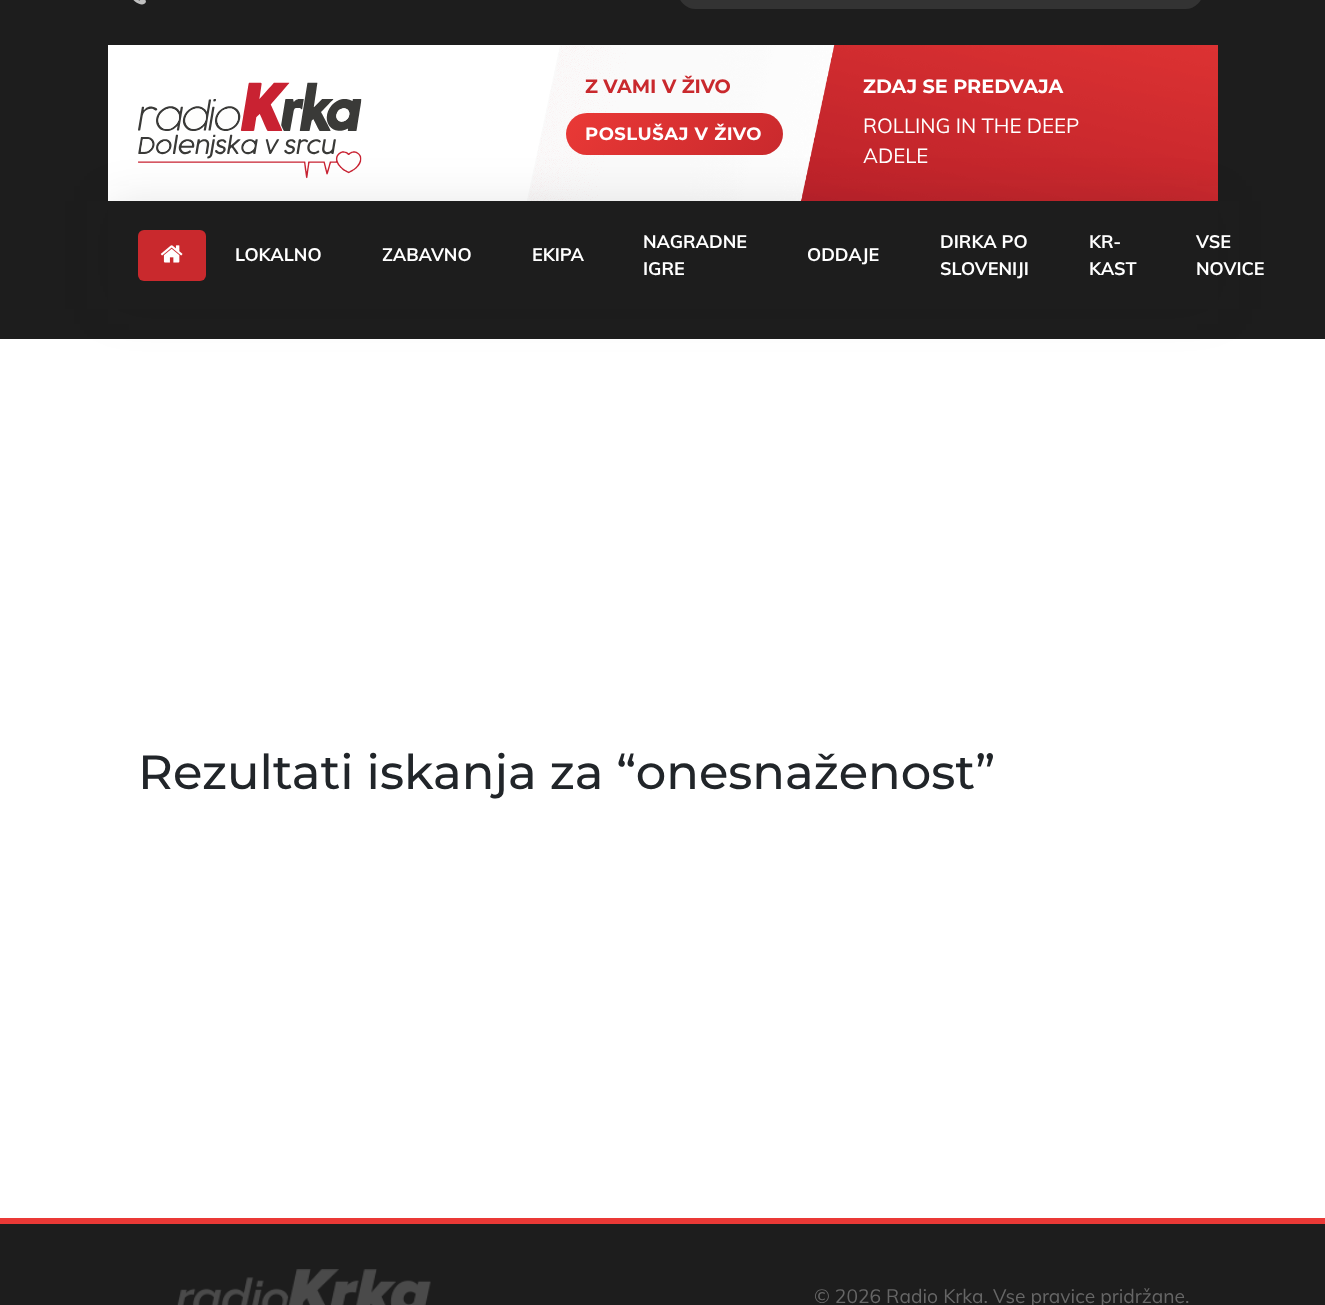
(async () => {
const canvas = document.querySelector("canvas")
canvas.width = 1325
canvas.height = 1305
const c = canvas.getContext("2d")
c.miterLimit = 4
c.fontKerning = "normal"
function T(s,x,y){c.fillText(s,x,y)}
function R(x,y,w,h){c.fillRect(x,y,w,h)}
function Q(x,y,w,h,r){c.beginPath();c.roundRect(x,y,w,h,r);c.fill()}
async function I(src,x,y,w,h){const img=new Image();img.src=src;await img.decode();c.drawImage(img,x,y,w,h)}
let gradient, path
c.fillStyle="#fff"
R(0,0,1325,1305)
c.fillStyle="#1d1d1d"
R(0,0,1325,339)
await I("1.png",133,0,13,5)
c.fillStyle="#333"
Q(678,-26,525,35,25.5)
await I("2.png",108,45,1110,156)
await I("3.png",138,82,224,97)
c.font="bold 19.25px Montserrat"
c.fillStyle="#c9292d"
T("Z VAMI V ŽIVO",585,93)
gradient = c.createLinearGradient(600,71,748,196)
gradient.addColorStop(0,"#ea3936")
gradient.addColorStop(1,"#c9292d")
c.fillStyle = gradient
Q(566,113,217,42,21)
c.letterSpacing="0.5px"
c.font="bold 18px Montserrat"
c.fillStyle="#fff"
T("POSLUŠAJ V ŽIVO",585,140)
c.letterSpacing="0px"
c.font="bold 19.25px Montserrat"
T("ZDAJ SE PREDVAJA",863,93)
c.font="20.4px Muli"
T("ROLLING IN THE DEEP",863,133)
T("ADELE",863,163)
c.save()
path = new Path2D("M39 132h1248v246h-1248zm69 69h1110v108h-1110z")
c.clip(path,"evenodd")
c.fillStyle="#1d1d1d1a"
c.filter="blur(22.5px)"
c.beginPath()
c.rect(108,201,1110,108)
c.fill()
c.filter="none"
c.restore()
c.fillStyle="#c9292d"
Q(138,230,68,51,6)
await I("4.png",160,245,23,18)
c.font="bold 18px Muli"
c.fillStyle="#fff"
T("LOKALNO",235,261)
T("ZABAVNO",382,261)
T("EKIPA",532,261)
T("NAGRADNE",643,248)
T("IGRE",643,275)
T("ODDAJE",807,261)
T("DIRKA PO",940,248)
T("SLOVENIJI",940,275)
T("KR-",1089,248)
T("KAST",1089,275)
T("VSE",1196,248)
T("NOVICE",1196,275)
c.font="500 48px Montserrat"
c.fillStyle="#212529"
T("Rezultati iskanja za “onesnaženost”",138,789)
c.fillStyle="#1d1d1d"
R(0,1224,1325,81)
c.fillStyle="#ea3936"
R(0,1218,1325,6)
await I("5.png",177,1269,254,36)
c.font="19.25px Muli"
c.fillStyle="#666"
T("© 2026 Radio Krka. Vse pravice pridržane.",814,1303)
})()
